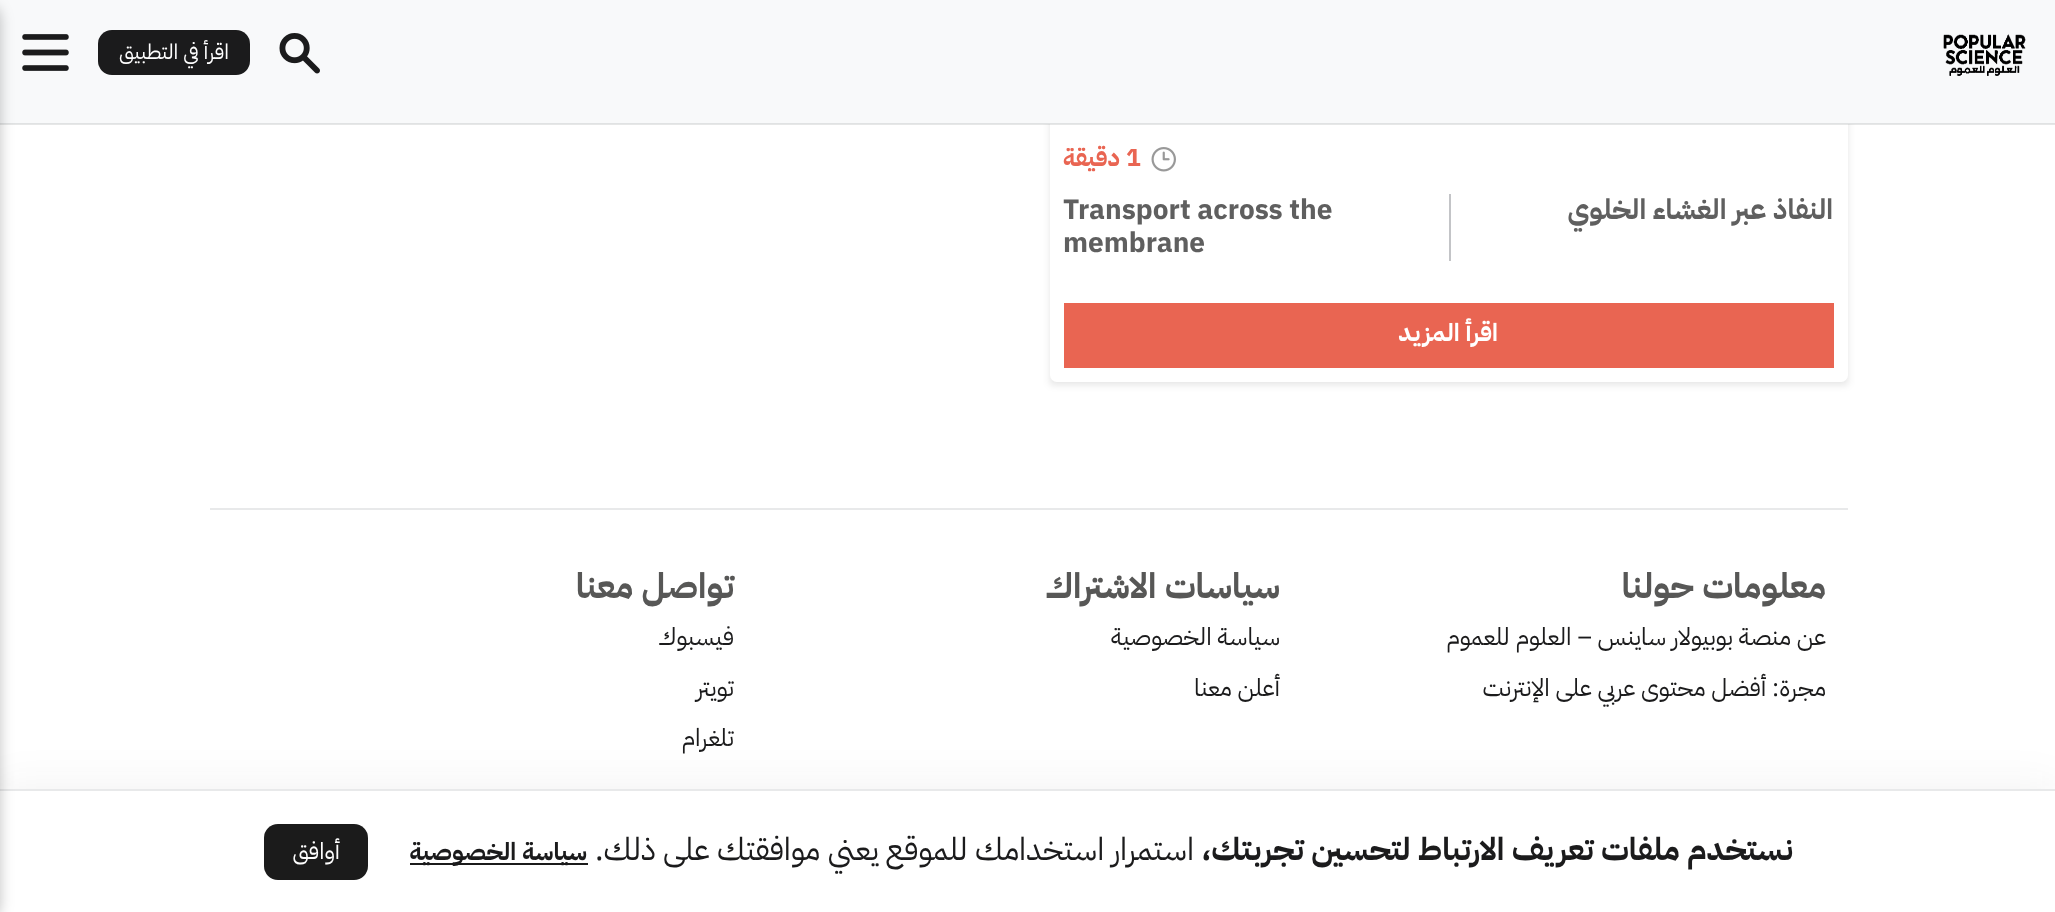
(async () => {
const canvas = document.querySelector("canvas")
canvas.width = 2055
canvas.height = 912
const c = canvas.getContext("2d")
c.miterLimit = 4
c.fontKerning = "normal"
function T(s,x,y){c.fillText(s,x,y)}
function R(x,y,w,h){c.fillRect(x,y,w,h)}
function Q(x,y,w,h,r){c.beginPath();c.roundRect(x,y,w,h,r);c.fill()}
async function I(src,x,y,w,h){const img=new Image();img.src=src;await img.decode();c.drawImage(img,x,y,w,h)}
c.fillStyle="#fff"
R(0,0,2055,912)
c.fillStyle="#0000001a"
c.filter="blur(3.5px)"
c.beginPath()
c.rect(1050,28,798,357)
c.fill()
c.filter="none"
c.fillStyle="#fff"
Q(1050,25,798,357,7)
c.fillStyle="#f8f9fa"
R(0,0,2055,124)
c.fillStyle="#6d6e6f2b"
R(0,123,2055,2)
await I("1.png",1943,34,83,42)
await I("2.png",279,33,41,41)
c.fillStyle="#1b1b1c"
Q(98,30,152,45,14)
c.direction="rtl"
c.font="21px IBM Plex Sans Arabic"
c.fillStyle="#fff"
T("اقرأ في التطبيق",229,59)
await I("3.png",22,34,47,37)
c.fillStyle="#1b1b1c0f"
c.filter="blur(21px)"
c.beginPath()
c.rect(0,786,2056,124)
c.fill()
c.filter="none"
c.fillStyle="#fff"
R(0,791,2055,121)
c.fillStyle="#e8e9ea"
R(0,789,2055,2)
c.fillStyle="#0000003d"
c.filter="blur(7px)"
c.beginPath()
c.roundRect(-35,5,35,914,14)
c.fill()
c.filter="none"
await I("4.png",1151,147,25,25)
c.direction="ltr"
c.font="bold 24.5px IBM Plex Sans Arabic"
c.fillStyle="#e96552"
T("1",1126,166)
c.direction="rtl"
T("دقيقة",1120,166)
c.fillStyle="#c3c4c7"
R(1449,194,2,67)
c.font="bold 28px IBM Plex Sans Arabic"
c.fillStyle="#5f5f5f"
T("النفاذ عبر الغشاء الخلوي",1833,219)
c.direction="ltr"
T("Transport across the",1063,219)
T("membrane",1063,252)
c.fillStyle="#e96552"
R(1064,303,770,65)
c.direction="rtl"
c.font="bold 24.5px IBM Plex Sans Arabic"
c.fillStyle="#fff"
T("اقرأ المزيد",1498,341)
c.fillStyle="#e8e9ea"
R(210,508,1638,2)
c.font="bold 35px IBM Plex Sans Arabic"
c.fillStyle="#575756"
T("معلومات حولنا",1826,598)
c.font="24.5px IBM Plex Sans Arabic"
c.fillStyle="#1b1b1c"
T("عن منصة بوبيولار ساينس – العلوم للعموم",1826,645)
T("مجرة: أفضل محتوى عربي على الإنترنت",1826,696)
c.font="bold 35px IBM Plex Sans Arabic"
c.fillStyle="#575756"
T("سياسات الاشتراك",1280,598)
c.font="24.5px IBM Plex Sans Arabic"
c.fillStyle="#1b1b1c"
T("سياسة الخصوصية",1280,645)
T("أعلن معنا",1280,696)
c.font="bold 35px IBM Plex Sans Arabic"
c.fillStyle="#575756"
T("تواصل معنا",734,598)
c.font="24.5px IBM Plex Sans Arabic"
c.fillStyle="#1b1b1c"
T("فيسبوك",734,645)
T("تويتر",734,696)
T("تلغرام",734,746)
c.font="bold 31.5px IBM Plex Sans Arabic"
T("نستخدم ملفات تعريف الارتباط لتحسين تجربتك،",1793,860)
c.font="31.5px IBM Plex Sans Arabic"
T("استمرار استخدامك للموقع يعني موافقتك على ذلك.",1194,860)
c.fillStyle="#1b1b1b"
R(410,863,178,2)
c.font="bold 24.5px IBM Plex Sans Arabic"
c.fillStyle="#1b1b1c"
T("سياسة الخصوصية",587,860)
c.fillStyle="#1b1b1b"
Q(264,824,104,56,14)
c.font="23px IBM Plex Sans Arabic"
c.fillStyle="#fff"
T("أوافق",340,859)
})()
